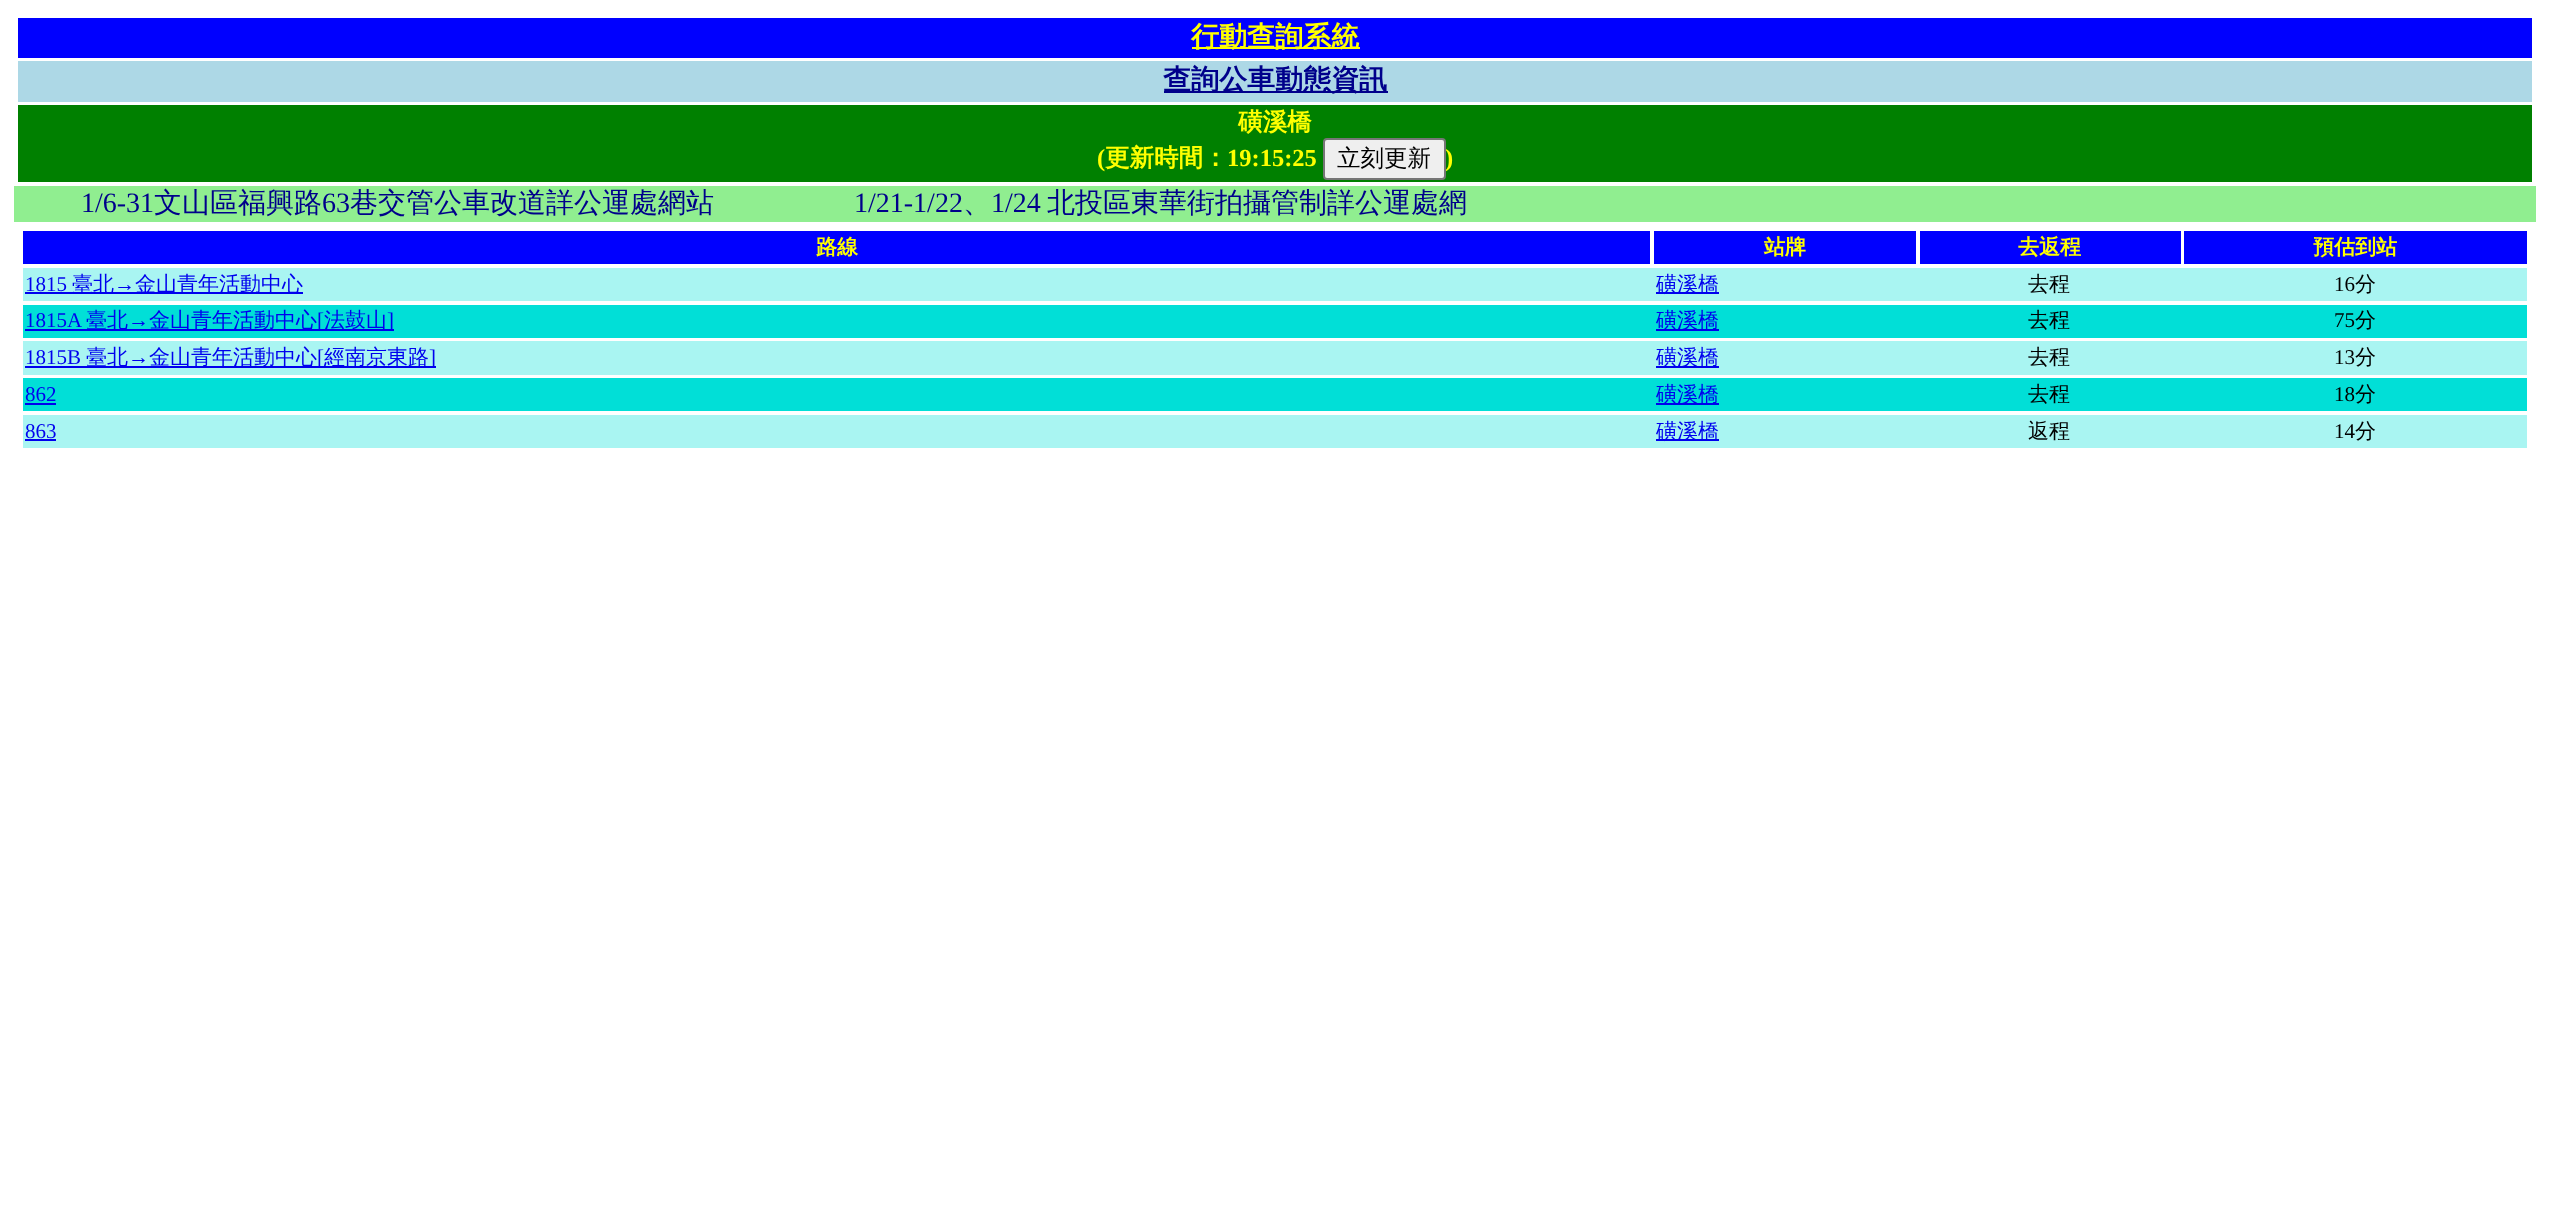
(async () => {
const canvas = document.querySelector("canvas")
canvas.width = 2549
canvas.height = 1213
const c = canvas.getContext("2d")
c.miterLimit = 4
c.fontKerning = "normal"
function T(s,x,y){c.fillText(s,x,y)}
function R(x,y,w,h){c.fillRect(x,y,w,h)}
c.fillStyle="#fff"
R(0,0,2549,1213)
c.fillStyle="#00f"
R(18,18,2514,40)
c.fillStyle="#ff0"
R(1192,47,168,2)
c.font="bold 28px WenQuanYi Zen Hei"
T("行動查詢系統",1191,46)
c.fillStyle="#add8e6"
R(18,61,2514,41)
c.fillStyle="#00008b"
R(1164,91,224,2)
T("查詢公車動態資訊",1163,89)
c.fillStyle="#008000"
R(18,105,2514,77)
c.font="bold 24.5px WenQuanYi Zen Hei"
c.fillStyle="#ff0"
T("磺溪橋",1238,130)
c.font="bold 24.5px Liberation Serif"
T("(",1097,166)
c.font="bold 24.5px WenQuanYi Zen Hei"
T("更新時間：",1105,166)
c.font="bold 24.5px Liberation Serif"
T("19:15:25",1227,166)
T(")",1445,166)
c.fillStyle="#efefef"
c.beginPath()
c.roundRect(1324,139,121,40,3)
c.fill()
c.strokeStyle="#767676"
c.lineWidth=2
c.stroke()
c.font="500 23.5px WenQuanYi Zen Hei"
c.fillStyle="#000"
T("立刻更新",1337,166)
c.fillStyle="#90ee90"
R(14,186,2522,36)
c.font="28px Liberation Serif"
c.fillStyle="#00008b"
T("1/6-31",81,212)
c.font="500 28px WenQuanYi Zen Hei"
T("文山區福興路",154,212)
c.font="28px Liberation Serif"
T("63",322,212)
c.font="500 28px WenQuanYi Zen Hei"
T("巷交管公車改道詳公運處網站",350,212)
c.font="28px Liberation Serif"
T("1/21-1/22",854,212)
c.font="500 28px WenQuanYi Zen Hei"
T("、",963,212)
c.font="28px Liberation Serif"
T("1/24",991,212)
c.font="500 28px WenQuanYi Zen Hei"
T("北投區東華街拍攝管制詳公運處網",1047,212)
c.fillStyle="#00f"
R(23,231,1627,33)
c.font="bold 21px WenQuanYi Zen Hei"
c.fillStyle="#ff0"
T("路線",816,254)
c.fillStyle="#00f"
R(1654,231,262,33)
c.fillStyle="#ff0"
T("站牌",1764,254)
c.fillStyle="#00f"
R(1920,231,261,33)
c.fillStyle="#ff0"
T("去返程",2018,254)
c.fillStyle="#00f"
R(2184,231,343,33)
c.fillStyle="#ff0"
T("預估到站",2313,254)
c.fillStyle="#a9f5f2"
R(23,268,2504,33)
c.font="21px Liberation Serif"
c.fillStyle="#00e"
T("1815",25,291)
R(25,292,278,2)
c.font="500 21px WenQuanYi Zen Hei"
T("臺北",72,291)
c.font="21px Liberation Serif"
T("→",114,291)
c.font="500 21px WenQuanYi Zen Hei"
T("金山青年活動中心",135,291)
R(1656,292,63,2)
T("磺溪橋",1656,291)
c.fillStyle="#000"
T("去程",2028,291)
c.font="21px Liberation Serif"
T("16",2334,291)
c.font="500 21px WenQuanYi Zen Hei"
T("分",2355,291)
c.fillStyle="#01dfd7"
R(23,305,2504,33)
c.font="21px Liberation Serif"
c.fillStyle="#00e"
T("1815A",25,327)
R(25,329,369,2)
c.font="500 21px WenQuanYi Zen Hei"
T("臺北",86,327)
c.font="21px Liberation Serif"
T("→",128,327)
c.font="500 21px WenQuanYi Zen Hei"
T("金山青年活動中心",149,327)
c.font="21px Liberation Serif"
T("[",317,327)
c.font="500 21px WenQuanYi Zen Hei"
T("法鼓山",324,327)
c.font="21px Liberation Serif"
T("]",387,327)
R(1656,329,63,2)
c.font="500 21px WenQuanYi Zen Hei"
T("磺溪橋",1656,327)
c.fillStyle="#000"
T("去程",2028,327)
c.font="21px Liberation Serif"
T("75",2334,327)
c.font="500 21px WenQuanYi Zen Hei"
T("分",2355,327)
c.fillStyle="#a9f5f2"
R(23,341,2504,34)
c.font="21px Liberation Serif"
c.fillStyle="#00e"
T("1815B",25,364)
R(25,366,411,2)
c.font="500 21px WenQuanYi Zen Hei"
T("臺北",86,364)
c.font="21px Liberation Serif"
T("→",128,364)
c.font="500 21px WenQuanYi Zen Hei"
T("金山青年活動中心",149,364)
c.font="21px Liberation Serif"
T("[",317,364)
c.font="500 21px WenQuanYi Zen Hei"
T("經南京東路",324,364)
c.font="21px Liberation Serif"
T("]",429,364)
R(1656,366,63,2)
c.font="500 21px WenQuanYi Zen Hei"
T("磺溪橋",1656,364)
c.fillStyle="#000"
T("去程",2028,364)
c.font="21px Liberation Serif"
T("13",2334,364)
c.font="500 21px WenQuanYi Zen Hei"
T("分",2355,364)
c.fillStyle="#01dfd7"
R(23,378,2504,33)
c.font="21px Liberation Serif"
c.fillStyle="#00e"
T("862",25,401)
R(25,403,31,2)
R(1656,403,63,2)
c.font="500 21px WenQuanYi Zen Hei"
T("磺溪橋",1656,401)
c.fillStyle="#000"
T("去程",2028,401)
c.font="21px Liberation Serif"
T("18",2334,401)
c.font="500 21px WenQuanYi Zen Hei"
T("分",2355,401)
c.fillStyle="#a9f5f2"
R(23,415,2504,33)
c.font="21px Liberation Serif"
c.fillStyle="#00e"
T("863",25,438)
R(25,439,31,2)
R(1656,439,63,2)
c.font="500 21px WenQuanYi Zen Hei"
T("磺溪橋",1656,438)
c.fillStyle="#000"
T("返程",2028,438)
c.font="21px Liberation Serif"
T("14",2334,438)
c.font="500 21px WenQuanYi Zen Hei"
T("分",2355,438)
})()
